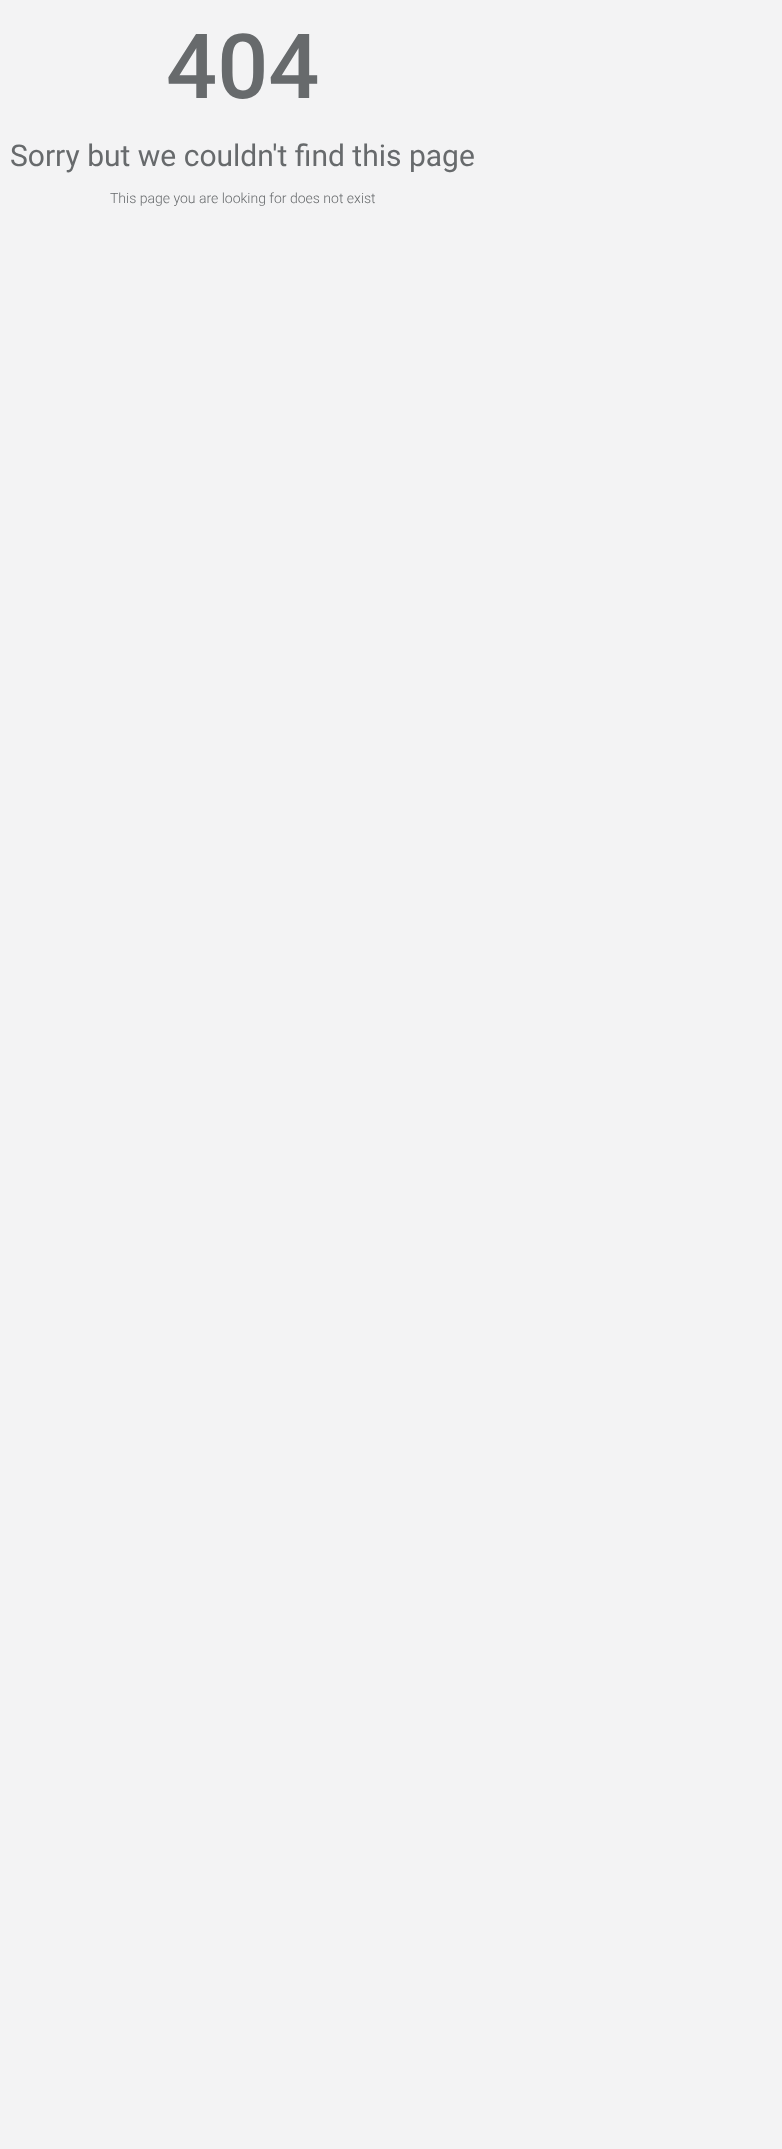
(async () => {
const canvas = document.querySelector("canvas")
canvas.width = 782
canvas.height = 2149
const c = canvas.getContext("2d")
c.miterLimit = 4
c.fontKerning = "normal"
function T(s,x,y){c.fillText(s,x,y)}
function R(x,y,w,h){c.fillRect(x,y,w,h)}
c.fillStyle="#f3f3f4"
R(0,0,782,2149)
c.font="500 90px Roboto"
c.fillStyle="#676a6c"
T("404",166,98)
c.font="30px Roboto"
T("Sorry but we couldn't find this page",10,166)
c.font="300 14px Roboto"
T("This page you are looking for does not exist",110,203)
})()
